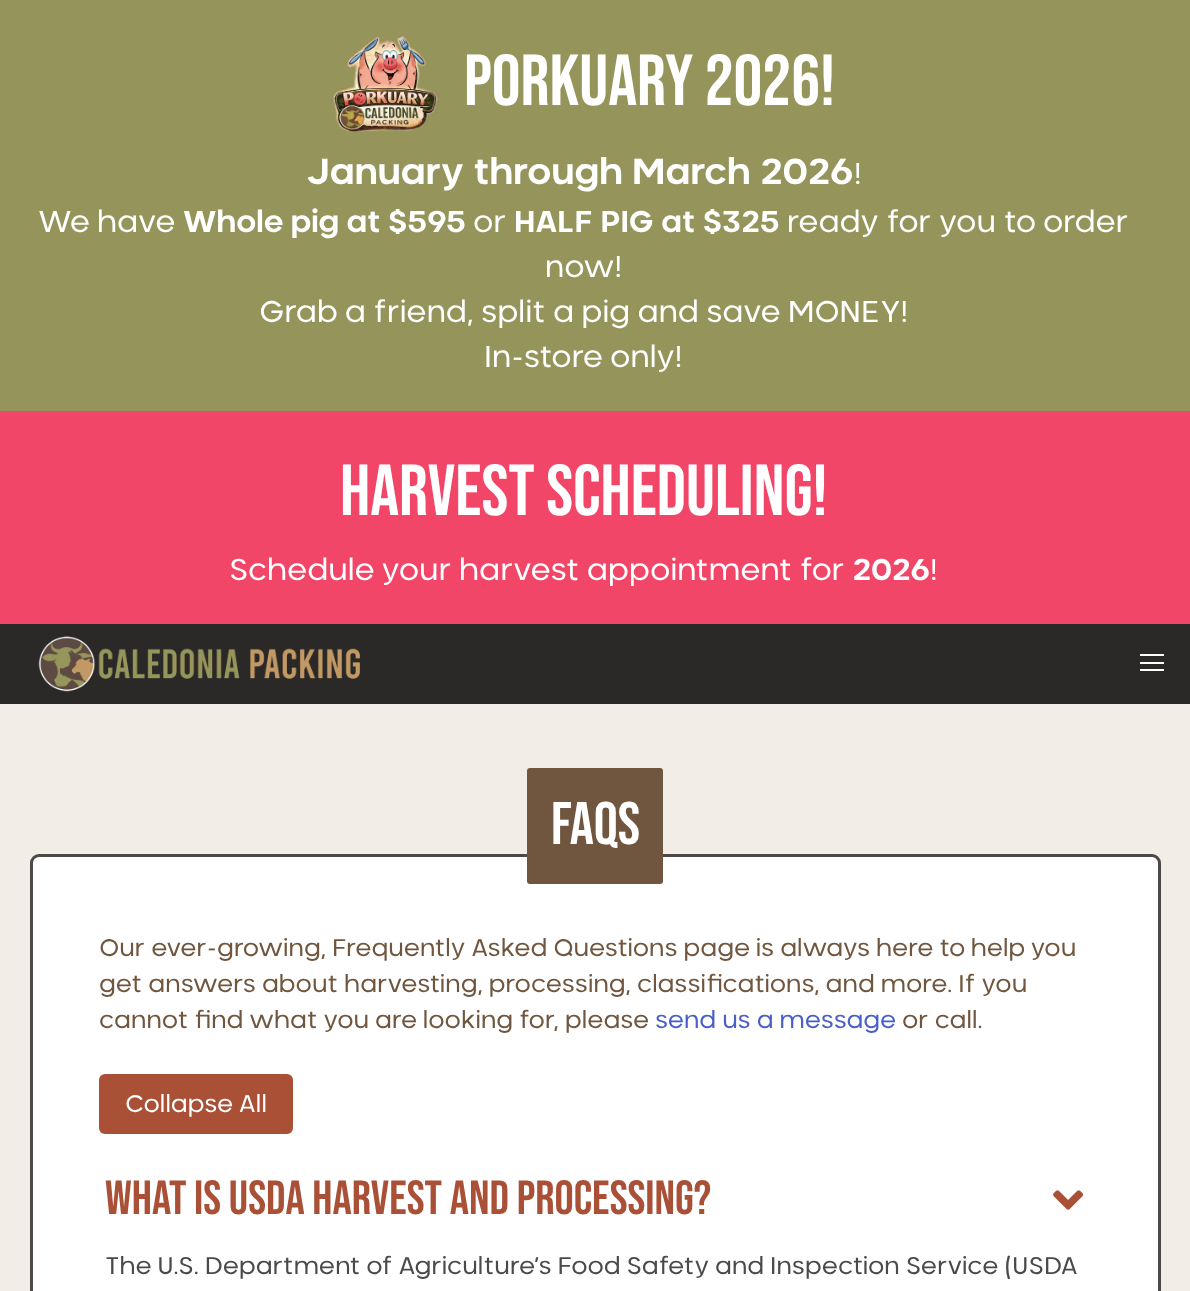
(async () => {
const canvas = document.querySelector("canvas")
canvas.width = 1190
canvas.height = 1291
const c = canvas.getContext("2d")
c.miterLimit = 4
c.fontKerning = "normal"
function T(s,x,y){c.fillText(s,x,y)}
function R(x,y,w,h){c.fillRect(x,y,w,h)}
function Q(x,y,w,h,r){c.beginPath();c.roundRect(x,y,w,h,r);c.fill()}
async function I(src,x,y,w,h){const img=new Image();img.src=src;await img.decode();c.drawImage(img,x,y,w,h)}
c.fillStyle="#f2ede7"
R(0,0,1190,1291)
c.fillStyle="#95945b"
R(0,0,1190,411)
await I("1.png",332,35,107,98)
c.font="72px Bebas Neue"
c.fillStyle="#fff"
T("Porkuary 2026!",464,105)
c.font="bold 36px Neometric"
T("January through March 2026",306,184)
c.font="30px Neometric"
T("!",854,184)
T("We have",38,232)
c.font="bold 30px Neometric"
T("Whole pig at $595",183,232)
c.font="30px Neometric"
T("or",473,232)
c.font="bold 30px Neometric"
T("HALF PIG at $325",514,232)
c.font="30px Neometric"
T("ready for you to order",787,232)
T("now!",545,277)
T("Grab a friend, split a pig and save MONEY!",259,322)
T("In-store only!",484,367)
c.fillStyle="#f14668"
R(0,411,1190,213)
c.font="72px Bebas Neue"
c.fillStyle="#fff"
T("Harvest Scheduling!",340,515)
c.font="30px Neometric"
T("Schedule your harvest appointment for",229,580)
c.font="bold 30px Neometric"
T("2026",852,580)
c.font="30px Neometric"
T("!",930,580)
c.fillStyle="#2b2927"
R(0,624,1190,80)
await I("2.png",38,636,322,56)
c.fillStyle="#fff"
R(1140,654,24,2)
R(1140,662,24,2)
R(1140,669,24,2)
c.beginPath()
c.roundRect(31.5,855.5,1128,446,7.5)
c.fill()
c.strokeStyle="#4e4946"
c.lineWidth=3
c.stroke()
c.fillStyle="#70563e"
Q(527,768,136,116,3)
c.font="60px Bebas Neue"
c.fillStyle="#fff"
T("FAQS",551,844)
c.font="24px Neometric"
c.fillStyle="#70563e"
T("Our ever-growing, Frequently Asked Questions page is always here to help you",99,956)
T("get answers about harvesting, processing, classifications, and more. If you",99,992)
T("cannot find what you are looking for, please",99,1028)
c.fillStyle="#485fc7"
T("send us a message",655,1028)
c.fillStyle="#70563e"
T("or call.",902,1028)
c.fillStyle="#a95037"
Q(99,1074,194,60,6)
c.fillStyle="#fff"
T("Collapse All",125,1112)
c.font="48px Bebas Neue"
c.fillStyle="#a95037"
T("What is USDA harvest and processing?",105,1214)
await I("3.png",1053,1190,31,20)
c.font="24px Neometric"
c.fillStyle="#4a4a4a"
T("The U.S. Department of Agriculture’s Food Safety and Inspection Service (USDA",105,1274)
})()
